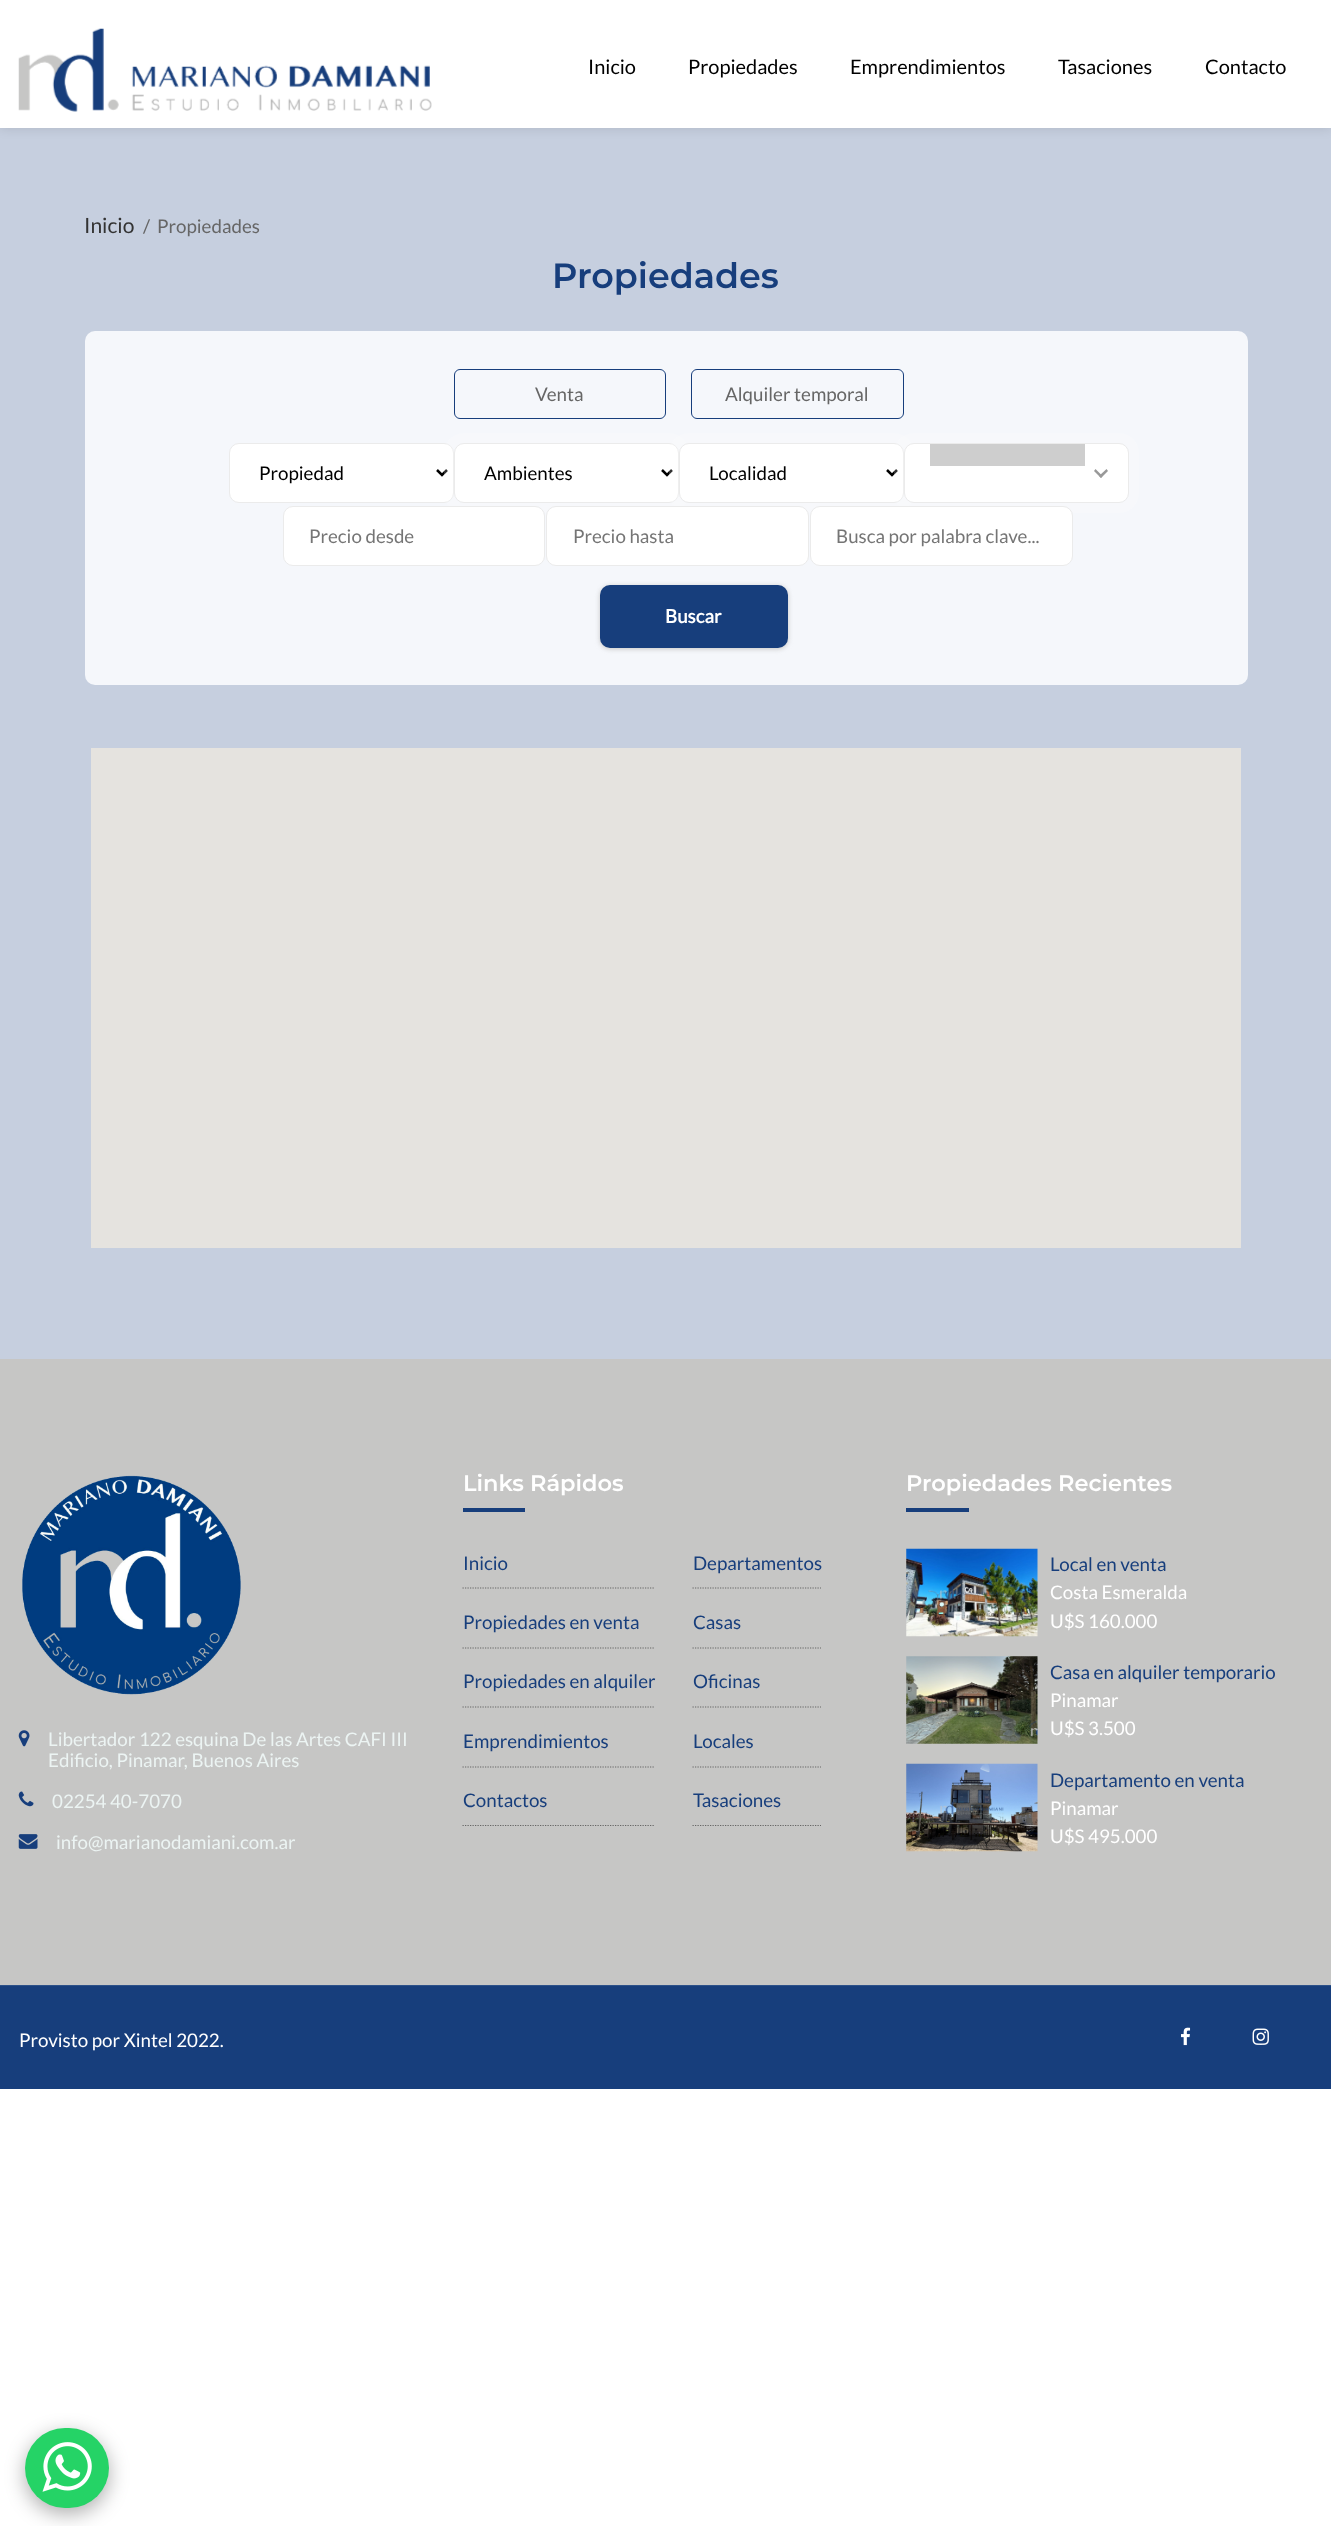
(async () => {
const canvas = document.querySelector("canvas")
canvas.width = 1331
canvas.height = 2526
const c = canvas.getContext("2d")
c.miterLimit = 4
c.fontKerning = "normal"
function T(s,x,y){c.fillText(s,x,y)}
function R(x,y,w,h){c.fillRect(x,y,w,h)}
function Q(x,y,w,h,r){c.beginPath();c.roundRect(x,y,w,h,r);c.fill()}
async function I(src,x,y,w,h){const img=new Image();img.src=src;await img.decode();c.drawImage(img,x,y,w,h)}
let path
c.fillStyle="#fff"
R(0,0,1331,2526)
c.fillStyle="#c6cfdf"
R(0,128,1331,1231)
c.save()
path = new Path2D("M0 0h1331v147h-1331zm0 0h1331v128h-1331z")
c.clip(path,"evenodd")
c.fillStyle="#0000001f"
c.filter="blur(6px)"
c.beginPath()
c.rect(0,0,1331,128)
c.fill()
c.filter="none"
c.restore()
await I("1.png",18,28,414,84)
c.font="20px Lato"
c.fillStyle="#000"
T("Inicio",588,74)
T("Propiedades",688,74)
T("Emprendimientos",850,74)
T("Tasaciones",1058,74)
T("Contacto",1205,74)
c.font="21px Lato"
c.fillStyle="#333"
T("Inicio",84,233)
c.font="18.75px Lato"
c.fillStyle="#666"
T("/",143,233)
T("Propiedades",157,233)
c.font="600 35px Montserrat"
c.fillStyle="#173e7c"
T("Propiedades",552,288)
c.fillStyle="#f5f7fb"
Q(85,331,1163,354,10)
c.beginPath()
c.roundRect(454.5,369.5,211,49,5.5)
c.strokeStyle="#173e7c"
c.stroke()
c.font="18.75px Lato"
c.fillStyle="#666"
T("Venta",535,401)
c.beginPath()
c.roundRect(691.5,369.5,212,49,5.5)
c.stroke()
T("Alquiler temporal",725,401)
c.fillStyle="#fff"
c.beginPath()
c.roundRect(229.5,443.5,224,59,9.5)
c.fill()
c.strokeStyle="#ebebeb"
c.stroke()
path = new Path2D("M437 470l5 5l5-5")
c.strokeStyle="#000"
c.lineWidth=2.5
c.stroke(path)
c.fillStyle="#000"
T("Propiedad",259,480)
c.beginPath()
c.roundRect(449,438,235,70,15)
c.strokeStyle="#ffffff33"
c.lineWidth=10
c.stroke()
c.fillStyle="#fff"
c.beginPath()
c.roundRect(454.5,443.5,224,59,9.5)
c.fill()
c.strokeStyle="#ebebeb"
c.lineWidth=1
c.stroke()
path = new Path2D("M662 470l5 5l5-5")
c.strokeStyle="#000"
c.lineWidth=2.5
c.stroke(path)
c.fillStyle="#000"
T("Ambientes",484,480)
c.beginPath()
c.roundRect(674,438,235,70,15)
c.strokeStyle="#ffffff33"
c.lineWidth=10
c.stroke()
c.fillStyle="#fff"
c.beginPath()
c.roundRect(679.5,443.5,224,59,9.5)
c.fill()
c.strokeStyle="#ebebeb"
c.lineWidth=1
c.stroke()
path = new Path2D("M887 470l5 5l5-5")
c.strokeStyle="#000"
c.lineWidth=2.5
c.stroke(path)
c.fillStyle="#000"
T("Localidad",709,480)
c.beginPath()
c.roundRect(899,438,235,70,15)
c.strokeStyle="#ffffff33"
c.lineWidth=10
c.stroke()
c.fillStyle="#fff"
c.beginPath()
c.roundRect(904.5,443.5,224,59,9.5)
c.fill()
c.strokeStyle="#ebebeb"
c.lineWidth=1
c.stroke()
c.fillStyle="#cecece"
R(930,444,155,22)
c.fillStyle="#999"
path = new Path2D("M1106.5 469l1.5 2l-7 7l-2-2z")
c.fill(path)
path = new Path2D("M1095.5 469l7 7l-1.5 2l-7-7z")
c.fill(path)
c.fillStyle="#fff"
c.beginPath()
c.roundRect(283.5,506.5,261,59,9.5)
c.fill()
c.stroke()
c.fillStyle="#757575"
T("Precio desde",309,543)
c.fillStyle="#fff"
c.beginPath()
c.roundRect(546.5,506.5,262,59,9.5)
c.fill()
c.stroke()
c.fillStyle="#757575"
T("Precio hasta",573,543)
c.fillStyle="#fff"
c.beginPath()
c.roundRect(810.5,506.5,262,59,9.5)
c.fill()
c.stroke()
c.fillStyle="#757575"
T("Busca por palabra clave...",836,543)
c.fillStyle="#c6c6c5"
c.filter="blur(2.5px)"
c.beginPath()
c.roundRect(600,586,188,63,10)
c.fill()
c.filter="none"
c.fillStyle="#173e7c"
Q(600,585,188,63,10)
c.font="bold 18.75px Lato"
c.fillStyle="#fff"
T("Buscar",665,623)
c.fillStyle="#e5e3df"
R(91,748,1150,500)
c.fillStyle="#c6c6c5"
R(0,1359,1331,626)
await I("2.png",22,1475,219,220)
await I("3.png",18,1730,12,17)
c.font="18.75px Lato"
c.fillStyle="#ecf4f3"
T("Libertador 122 esquina De las Artes CAFI III",48,1746)
T("Edificio, Pinamar, Buenos Aires",48,1767)
await I("4.png",18,1791,16,16)
T("02254 40-7070",52,1808)
await I("5.png",18,1834,20,15)
T("info@marianodamiani.com.ar",56,1849)
c.font="600 22.5px Montserrat"
c.fillStyle="#fff"
T("Links Rápidos",463,1491)
c.fillStyle="#173e7c"
R(463,1508,62,4)
path = new Path2D("M462.5 1588h192.5")
c.strokeStyle="#666"
c.lineWidth=1.2
c.setLineDash([1.25,1.25])
c.stroke(path)
c.font="18.75px Lato"
T("Inicio",463,1570)
path = new Path2D("M462.5 1648h192.5")
c.stroke(path)
T("Propiedades en venta",463,1629)
path = new Path2D("M462.5 1707h192.5")
c.stroke(path)
T("Propiedades en alquiler",463,1688)
path = new Path2D("M462.5 1767h192.5")
c.stroke(path)
T("Emprendimientos",463,1748)
path = new Path2D("M462.5 1825.5h192.5")
c.stroke(path)
T("Contactos",463,1807)
path = new Path2D("M692.5 1588h128.5")
c.stroke(path)
T("Departamentos",693,1570)
path = new Path2D("M692.5 1648h128.5")
c.stroke(path)
T("Casas",693,1629)
path = new Path2D("M692.5 1707h128.5")
c.stroke(path)
T("Oficinas",693,1688)
path = new Path2D("M692.5 1767h128.5")
c.stroke(path)
T("Locales",693,1748)
path = new Path2D("M692.5 1825.5h128.5")
c.stroke(path)
T("Tasaciones",693,1807)
c.font="600 22.5px Montserrat"
c.fillStyle="#fff"
T("Propiedades Recientes",906,1491)
c.fillStyle="#173e7c"
R(906,1508,63,4)
await I("6.png",906,1548,132,89)
c.font="18.75px Lato"
T("Local en venta",1050,1571)
c.fillStyle="#fff"
T("Costa Esmeralda",1050,1599)
T("U$S 160.000",1050,1628)
await I("7.png",906,1656,132,88)
c.fillStyle="#173e7c"
T("Casa en alquiler temporario",1050,1679)
c.fillStyle="#fff"
T("Pinamar",1050,1707)
T("U$S 3.500",1050,1735)
await I("8.png",906,1763,132,89)
c.fillStyle="#173e7c"
T("Departamento en venta",1050,1787)
c.fillStyle="#fff"
T("Pinamar",1050,1815)
T("U$S 495.000",1050,1843)
c.fillStyle="#173e7c"
R(0,1986,1331,103)
c.fillStyle="#2d5189"
R(0,1985,1331,1)
c.fillStyle="#fff"
T("Provisto por Xintel 2022.",19,2047)
await I("9.png",1181,2027,10,19)
await I("10.png",1252,2028,17,17)
c.fillStyle="#00000052"
c.filter="blur(10px)"
c.beginPath()
c.roundRect(25,2434,84,80,40)
c.fill()
c.filter="none"
c.fillStyle="#25d366"
Q(25,2428,84,80,40)
await I("11.png",42,2442,50,50)
})()
